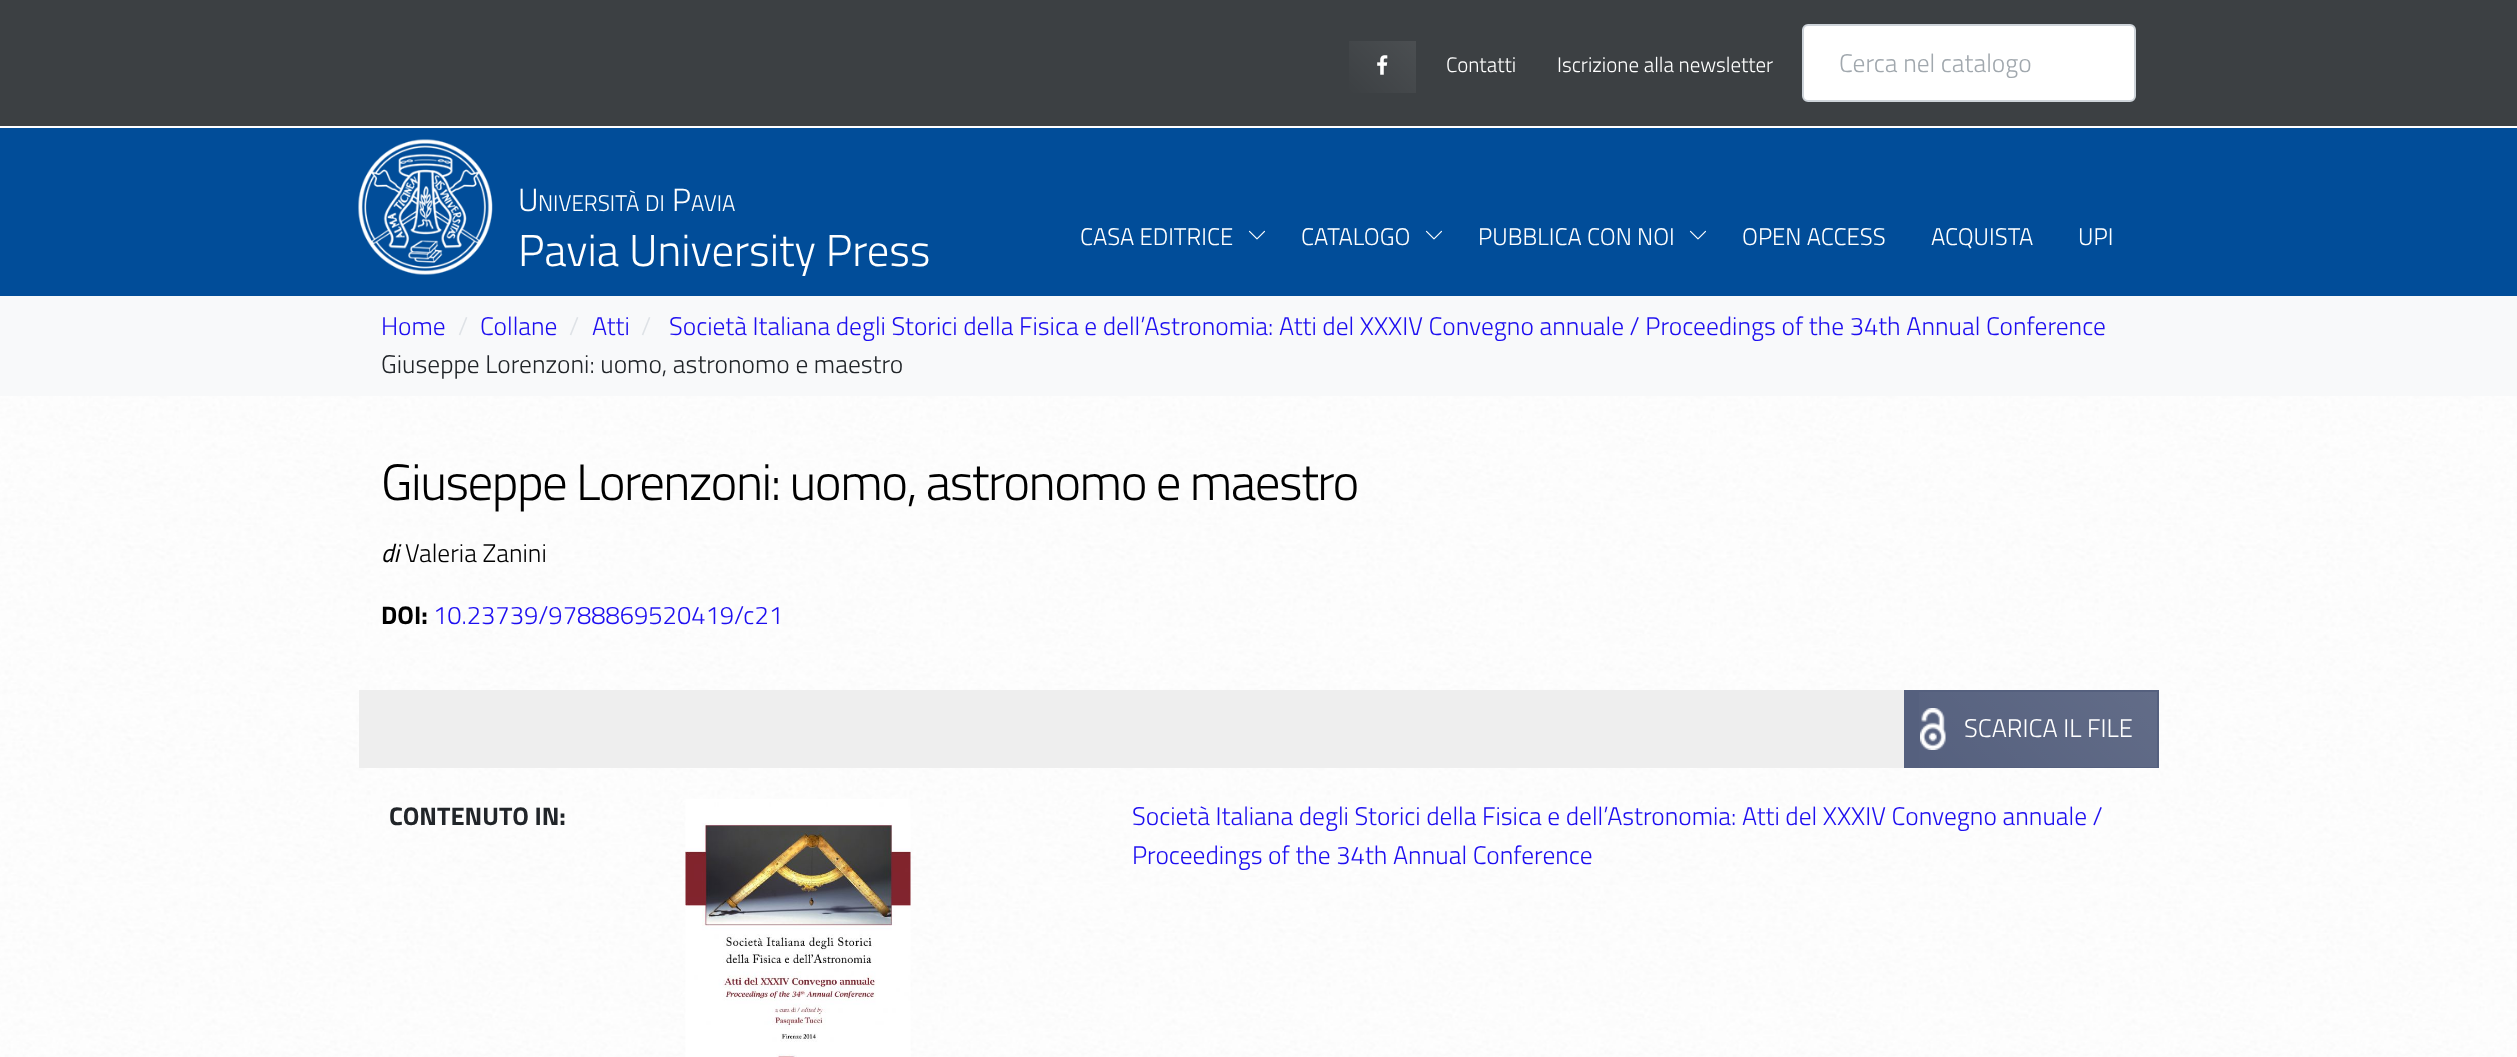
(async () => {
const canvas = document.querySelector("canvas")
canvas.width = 2517
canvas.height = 1057
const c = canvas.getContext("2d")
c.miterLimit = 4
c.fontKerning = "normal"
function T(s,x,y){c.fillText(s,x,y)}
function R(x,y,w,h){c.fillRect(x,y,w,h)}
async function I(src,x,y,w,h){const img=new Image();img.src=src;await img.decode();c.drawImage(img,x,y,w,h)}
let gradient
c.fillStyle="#fff"
R(0,0,2517,1057)
await I("1.png",0,396,2517,661)
c.fillStyle="#3c4043"
R(0,0,2517,126)
await I("2.png",1377,55,11,20)
gradient = c.createLinearGradient(1352,97,1412,37)
gradient.addColorStop(0,"#ffffff00")
gradient.addColorStop(1,"#ffffff14")
c.fillStyle = gradient
R(1349,41,67,52)
c.font="300 21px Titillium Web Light"
c.fillStyle="#fff"
T("Contatti",1446,72)
T("Iscrizione alla newsletter",1557,72)
c.beginPath()
c.roundRect(1803,25,332,76,5)
c.fill()
c.strokeStyle="#ced4da"
c.lineWidth=2
c.stroke()
c.font="300 25.5px Titillium Web Light"
c.fillStyle="#a1a8ae"
T("Cerca nel catalogo",1839,72)
c.fillStyle="#014d99"
R(0,128,2517,168)
await I("3.png",358,139,135,136)
c.font="300 32px Titillium Web Light"
c.fillStyle="#fff"
T("U",518,211)
c.font="300 22.5px Titillium Web Light"
T("NIVERSITÀ",538,211)
T("DI",645,211)
c.font="300 32px Titillium Web Light"
T("P",672,211)
c.font="300 22.5px Titillium Web Light"
T("AVIA",691,211)
c.font="300 44.6px Titillium Web Light"
T("Pavia University Press",518,266)
c.font="300 24px Titillium Web Light"
T("CASA EDITRICE",1080,245)
await I("4.png",1248,230,17,10)
T("CATALOGO",1301,245)
await I("4.png",1425,230,17,10)
T("PUBBLICA CON NOI",1478,245)
await I("4.png",1689,230,17,10)
T("OPEN ACCESS",1742,245)
T("ACQUISTA",1931,245)
T("UPI",2078,245)
c.fillStyle="#f8f9fa"
R(0,296,2517,100)
c.font="300 25.5px Titillium Web Light"
c.fillStyle="#1d0ef0"
T("Home",381,335)
c.fillStyle="#dee2e6"
T("/",458,335)
c.fillStyle="#1d0ef0"
T("Collane",480,335)
c.fillStyle="#dee2e6"
T("/",569,335)
c.fillStyle="#1d0ef0"
T("Atti",592,335)
c.fillStyle="#dee2e6"
T("/",641,335)
c.fillStyle="#1d0ef0"
T("Società Italiana degli Storici della Fisica e dell’Astronomia: Atti del XXXIV Convegno annuale / Proceedings of the 34th Annual Conference",669,335)
c.fillStyle="#212529"
T("Giuseppe Lorenzoni: uomo, astronomo e maestro",381,373)
c.letterSpacing="-1.5px"
c.font="300 51px Titillium Web Light"
c.fillStyle="#000"
T("Giuseppe Lorenzoni: uomo, astronomo e maestro",381,500)
c.letterSpacing="0px"
c.font="italic 25.5px Titillium Web"
T("di",381,562)
c.font="300 25.5px Titillium Web Light"
T("Valeria Zanini",405,562)
c.font="bold 25.5px Titillium Web"
T("DOI:",381,624)
c.font="300 25.5px Titillium Web Light"
c.fillStyle="#1d0ef0"
T("10.23739/9788869520419/c21",433,624)
c.fillStyle="#eee"
R(359,690,1545,78)
c.fillStyle="#55607e"
R(1904,690,255,78)
await I("5.png",1920,708,26,42)
gradient = c.createLinearGradient(1949,811,2113,647)
gradient.addColorStop(0,"#ffffff00")
gradient.addColorStop(1,"#ffffff14")
c.fillStyle = gradient
R(1919,692,238,75)
c.fillStyle="#fff"
T("SCARICA IL FILE",1964,737)
c.font="bold 25.5px Titillium Web"
c.fillStyle="#212529"
T("CONTENUTO IN:",389,825)
await I("6.png",685,799,226,258)
c.font="300 25.5px Titillium Web Light"
c.fillStyle="#1d0ef0"
T("Società Italiana degli Storici della Fisica e dell’Astronomia: Atti del XXXIV Convegno annuale /",1132,825)
T("Proceedings of the 34th Annual Conference",1132,864)
})()
